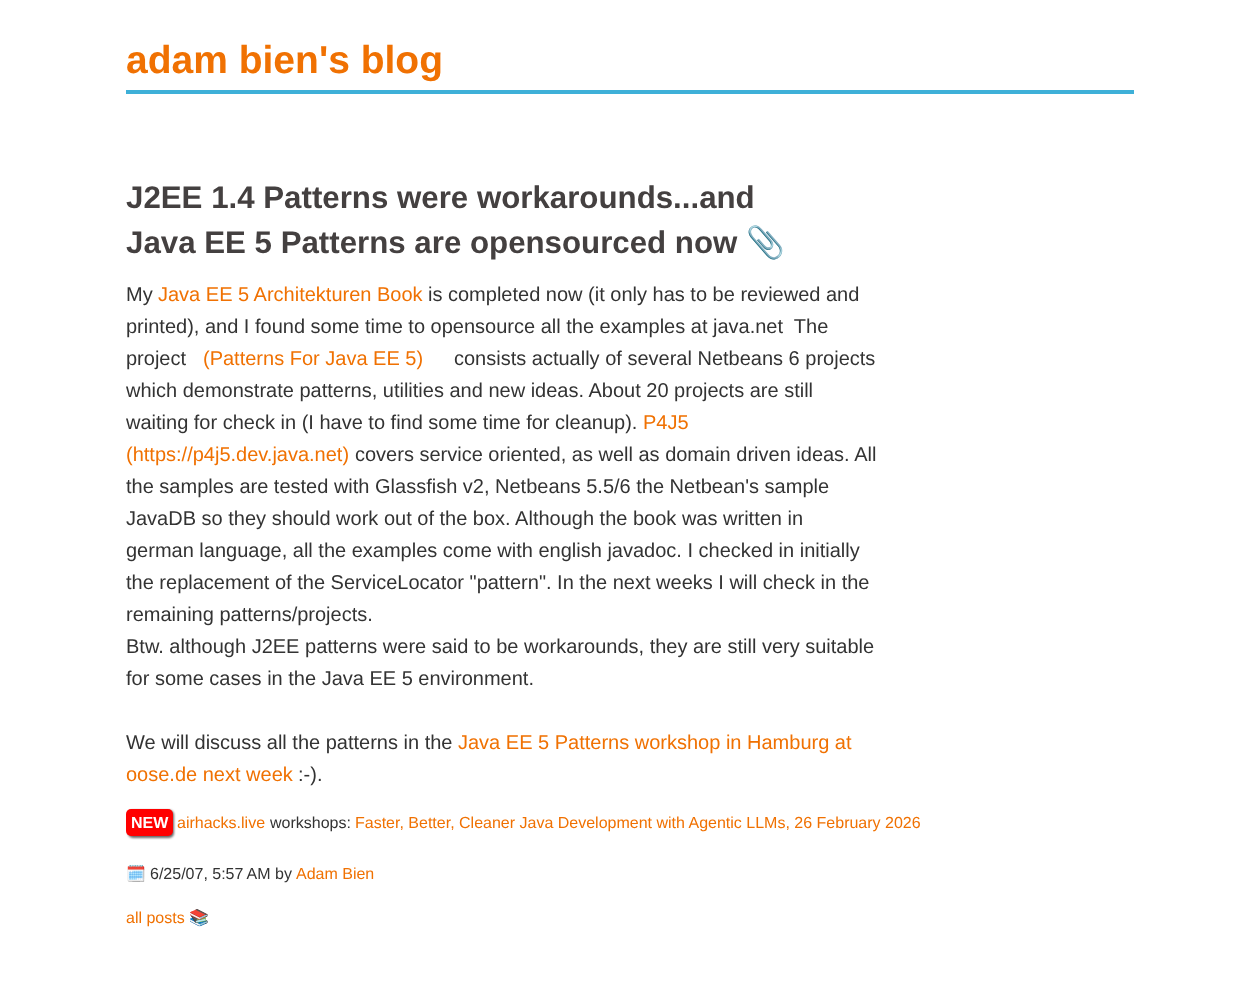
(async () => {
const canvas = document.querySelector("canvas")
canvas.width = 1260
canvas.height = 992
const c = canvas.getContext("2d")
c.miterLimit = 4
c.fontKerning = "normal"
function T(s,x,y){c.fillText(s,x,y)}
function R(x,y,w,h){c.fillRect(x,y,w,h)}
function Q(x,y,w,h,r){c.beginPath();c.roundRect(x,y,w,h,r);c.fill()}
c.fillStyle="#fff"
R(0,0,1260,992)
c.fillStyle="#3eb0d8"
R(126,90,1008,4)
c.font="bold 39px Liberation Sans"
c.fillStyle="#f07102"
T("adam bien's blog",126,73)
c.font="bold 31.25px Liberation Sans"
c.fillStyle="#444040"
T("J2EE 1.4 Patterns were workarounds...and",126,208)
T("Java EE 5 Patterns are opensourced now",126,253)
c.font="bold 31.25px Noto Color Emoji"
T("📎",746,253)
c.font="20px Liberation Sans"
c.fillStyle="#333"
T("My",126,301)
c.fillStyle="#f07102"
T("Java EE 5 Architekturen Book",158,301)
c.fillStyle="#333"
T("is completed now (it only has to be reviewed and",428,301)
T("printed), and I found some time to opensource all the examples at java.net  The",126,333)
T("project",126,365)
c.fillStyle="#f07102"
T("(Patterns For Java EE 5)",203,365)
c.fillStyle="#333"
T("consists actually of several Netbeans 6 projects",454,365)
T("which demonstrate patterns, utilities and new ideas. About 20 projects are still",126,397)
T("waiting for check in (I have to find some time for cleanup).",126,429)
c.fillStyle="#f07102"
T("P4J5",643,429)
T("(https://p4j5.dev.java.net)",126,461)
c.fillStyle="#333"
T("covers service oriented, as well as domain driven ideas. All",355,461)
T("the samples are tested with Glassfish v2, Netbeans 5.5/6 the Netbean's sample",126,493)
T("JavaDB so they should work out of the box. Although the book was written in",126,525)
T("german language, all the examples come with english javadoc. I checked in initially",126,557)
T("the replacement of the ServiceLocator \"pattern\". In the next weeks I will check in the",126,589)
T("remaining patterns/projects.",126,621)
T("Btw. although J2EE patterns were said to be workarounds, they are still very suitable",126,653)
T("for some cases in the Java EE 5 environment.",126,685)
T("We will discuss all the patterns in the",126,749)
c.fillStyle="#f07102"
T("Java EE 5 Patterns workshop in Hamburg at",458,749)
T("oose.de next week",126,781)
c.fillStyle="#333"
T(":-).",298,781)
c.fillStyle="#00000099"
c.filter="blur(1px)"
c.beginPath()
c.roundRect(128,810,46,28,5)
c.fill()
c.filter="none"
c.fillStyle="#f00"
Q(126,809,47,27,5)
c.font="bold 16px Liberation Sans"
c.fillStyle="#fff"
T("NEW",131,828)
c.font="16px Liberation Sans"
c.fillStyle="#f07102"
T("airhacks.live",177,828)
c.fillStyle="#333"
T("workshops:",270,828)
c.fillStyle="#f07102"
T("Faster, Better, Cleaner Java Development with Agentic LLMs, 26 February 2026",355,828)
c.font="16px Noto Color Emoji"
c.fillStyle="#333"
T("🗓️",126,879)
c.font="16px Liberation Sans"
T("6/25/07, 5:57 AM",150,879)
T("by",275,879)
c.fillStyle="#f07102"
T("Adam Bien",296,879)
T("all posts",126,923)
c.font="16px Noto Color Emoji"
T("📚",189,923)
})()
